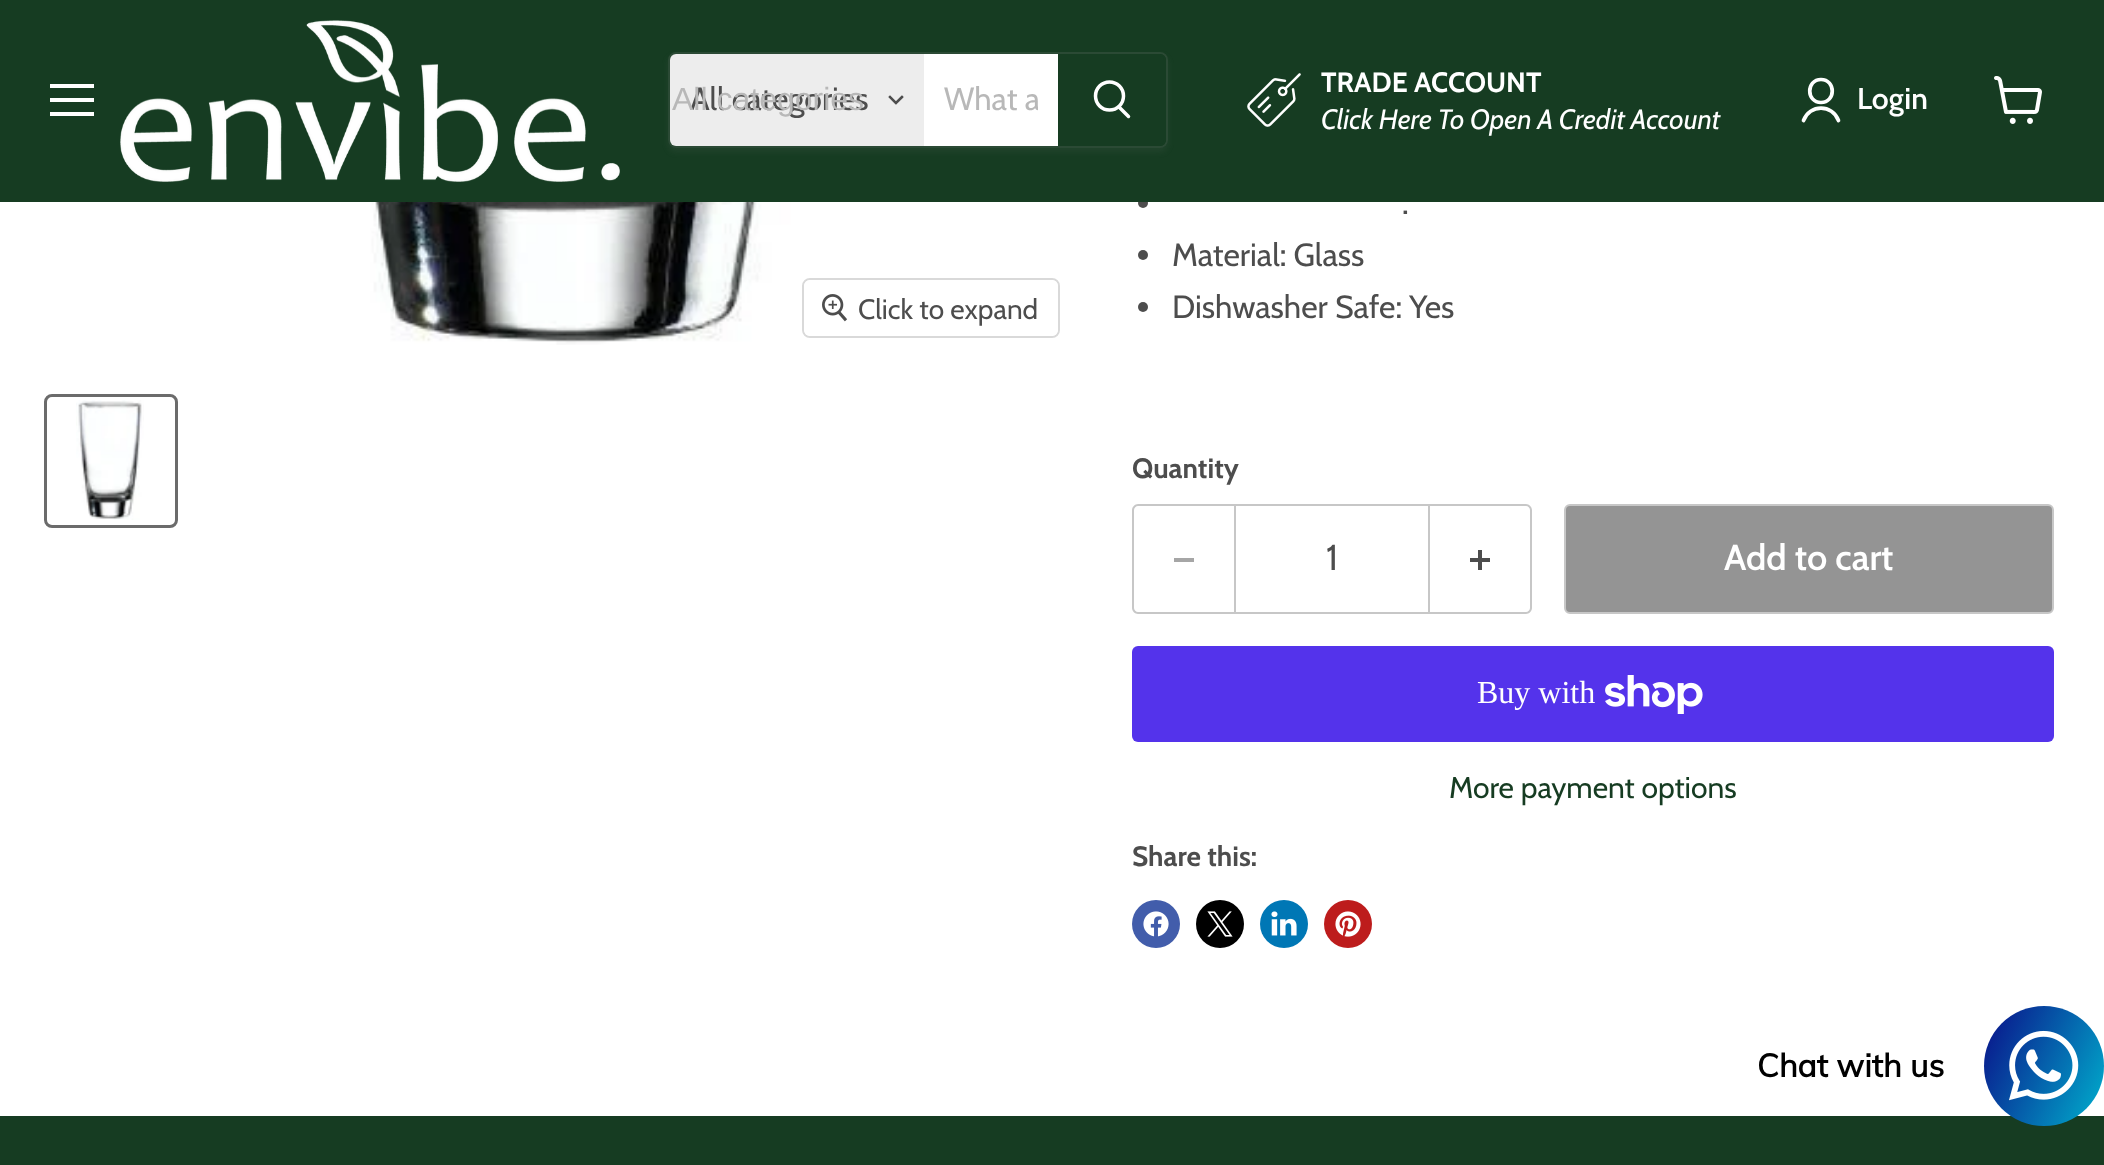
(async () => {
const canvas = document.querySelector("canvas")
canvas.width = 2104
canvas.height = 1165
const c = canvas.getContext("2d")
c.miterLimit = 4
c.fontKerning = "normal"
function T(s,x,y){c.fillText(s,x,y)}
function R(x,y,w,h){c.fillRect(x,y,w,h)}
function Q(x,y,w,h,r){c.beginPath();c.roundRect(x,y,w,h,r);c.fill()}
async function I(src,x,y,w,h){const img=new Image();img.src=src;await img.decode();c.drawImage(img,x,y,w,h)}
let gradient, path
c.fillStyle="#fff"
R(0,0,2104,1165)
c.fillStyle="#4d4d4d"
c.beginPath()
c.arc(1143,203,5,0,7)
c.fill()
c.fillStyle="#163c22"
R(0,0,2104,202)
c.fillStyle="#fff"
R(50,84,44,4)
R(50,98,44,4)
R(50,112,44,4)
await I("1.png",120,20,500,162)
c.save()
path = new Path2D("M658 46h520v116h-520zm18 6h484c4.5 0 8 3.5 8 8v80c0 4.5-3.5 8-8 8h-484c-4.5 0-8-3.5-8-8v-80c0-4.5 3.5-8 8-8z")
c.clip(path,"evenodd")
c.fillStyle="#8080801c"
c.filter="blur(3px)"
c.beginPath()
c.roundRect(668,56,500,96,8)
c.fill()
c.filter="none"
c.restore()
c.beginPath()
c.roundRect(669,53,498,94,7)
c.strokeStyle="#80808033"
c.lineWidth=2
c.stroke()
c.fillStyle="#ededed"
c.beginPath()
c.roundRect(670,54,254,92,[6,0,0,6])
c.fill()
c.font="32px Cabin"
c.fillStyle="#4d4d4d"
T("All categories",690,110)
c.font="32px Liberation Sans"
c.fillStyle="#b8b8b8"
T("All categories",672,110)
path = new Path2D("M896 103l6-6m-6 6l-6-6")
c.strokeStyle="#4d4d4d"
c.lineWidth=2.5
c.lineCap="square"
c.stroke(path)
c.fillStyle="#fff"
R(924,54,134,92)
c.save()
c.beginPath()
c.rect(944,80,94,38)
c.clip()
c.font="32px Cabin"
c.fillStyle="#b8b8b8"
T("What a",944,110)
c.restore()
c.fillStyle="#163c22"
c.beginPath()
c.roundRect(1059,55,106,90,[0,5,5,0])
c.fill()
c.strokeStyle="#163c22"
c.lineWidth=2
c.stroke()
path = new Path2D("M1128.5 116.5l-9.5-9.5")
c.strokeStyle="#fff"
c.lineWidth=3.5
c.lineCap="round"
c.stroke(path)
c.beginPath()
c.arc(1109.5,96,14,0,7)
c.stroke()
await I("2.png",1247,73,54,54)
c.font="bold 28px Cabin"
c.fillStyle="#fff"
T("TRADE ACCOUNT",1321,92)
c.font="italic 28px Cabin"
T("Click Here To Open A Credit Account",1321,129)
path = new Path2D("M1821 102.5c15 0 15-23 0-23c-15 0-15 23 0 23zm17.5 18c-6-16.5-29-16.5-35 0")
c.lineWidth=3.7
c.lineJoin="round"
c.stroke(path)
c.font="600 30px Cabin"
T("Login",1857,109)
await I("3.png",1994,76,48,48)
await I("4.png",333,202,466,143)
c.beginPath()
c.roundRect(803,279,256,58,7)
c.strokeStyle="#d9d9d9"
c.lineWidth=2
c.lineJoin="miter"
c.stroke()
c.fillStyle="#ffffffe6"
Q(804,280,254,56,6)
await I("5.png",822,294,26,28)
c.font="28px Cabin"
c.fillStyle="#4d4d4d"
T("Click to expand",858,319)
c.beginPath()
c.roundRect(45.5,395.5,131,131,6.5)
c.strokeStyle="#6b6b6b"
c.lineWidth=3
c.stroke()
await I("6.png",76,400,68,120)
c.font="32px Cabin"
T(".",1402,214)
c.beginPath()
c.arc(1143,255,5,0,7)
c.fill()
T("Material: Glass",1172,266)
c.beginPath()
c.arc(1143,307,5,0,7)
c.fill()
T("Dishwasher Safe: Yes",1172,318)
c.font="bold 28px Cabin"
T("Quantity",1132,478)
c.fillStyle="#c7c7c7"
path = new Path2D("M1138 504h96v110h-96c-3 0-6-3-6-6v-98c0-3 3-6 6-6zm0 2h96v106h-96c-2 0-4-2-4-4v-98c0-2 2-4 4-4z")
c.fill(path,"evenodd")
c.fillStyle="#a6a6a6"
R(1174,558,20,4)
c.strokeStyle="#c7c7c7"
c.lineWidth=2
c.strokeRect(1235,505,194,108)
c.font="36px Cabin"
c.fillStyle="#4d4d4d"
T("1",1326,570)
c.fillStyle="#c7c7c7"
path = new Path2D("M1430 504h96c3 0 6 3 6 6v98c0 3-3 6-6 6h-96zm0 2h96c2 0 4 2 4 4v98c0 2-2 4-4 4h-96z")
c.fill(path,"evenodd")
await I("7.png",1470,550,20,20)
c.fillStyle="#949494"
c.beginPath()
c.roundRect(1565,505,488,108,5)
c.fill()
c.stroke()
c.font="600 36px Cabin"
c.fillStyle="#fff"
T("Add to cart",1724,570)
c.fillStyle="#5433eb"
Q(1132,646,922,96,6)
c.font="32px Liberation Serif"
c.fillStyle="#fff"
T("Buy with",1477,703)
await I("8.png",1605,675,98,39)
c.font="30px Cabin"
c.fillStyle="#163c22"
T("More payment options",1449,798)
c.font="bold 28px Cabin"
c.fillStyle="#4d4d4d"
T("Share this:",1132,866)
c.fillStyle="#425dab"
c.beginPath()
c.arc(1156,924,24,0,7)
c.fill()
await I("9.png",1143,911,26,26)
c.fillStyle="#000"
c.beginPath()
c.arc(1220,924,24,0,7)
c.fill()
await I("10.png",1207,911,26,26)
c.fillStyle="#0077b5"
c.beginPath()
c.arc(1284,924,24,0,7)
c.fill()
await I("11.png",1271,911,26,25)
c.fillStyle="#bd1c1c"
c.beginPath()
c.arc(1348,924,24,0,7)
c.fill()
await I("12.png",1335,911,26,26)
c.fillStyle="#163c22"
R(0,1116,2104,49)
gradient = c.createLinearGradient(1972,1032,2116,1100)
gradient.addColorStop(0,"#0a0e88")
gradient.addColorStop(1,"#00b1ce")
c.fillStyle = gradient
c.beginPath()
c.arc(2044,1066,60,0,7)
c.fill()
c.font="bold 32px Muli"
c.fillStyle="#000"
T("Chat with us",1757,1077)
await I("13.png",2009,1030,70,71)
})()
